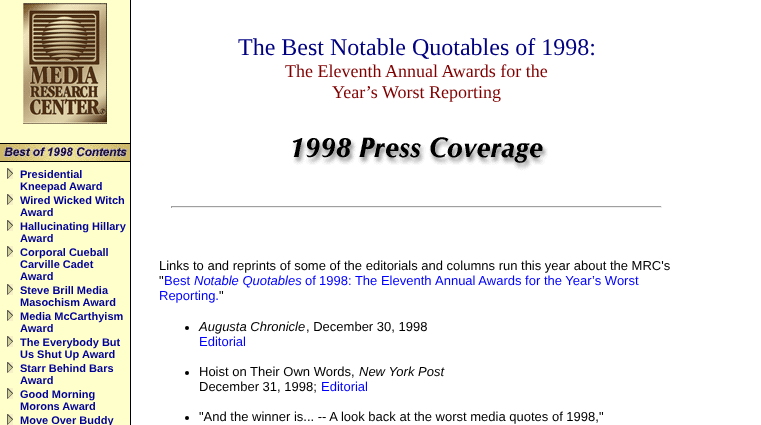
(async () => {
const canvas = document.querySelector("canvas")
canvas.width = 761
canvas.height = 425
const c = canvas.getContext("2d")
c.miterLimit = 4
c.fontKerning = "normal"
function T(s,x,y){c.fillText(s,x,y)}
function R(x,y,w,h){c.fillRect(x,y,w,h)}
async function I(src,x,y,w,h){const img=new Image();img.src=src;await img.decode();c.drawImage(img,x,y,w,h)}
c.fillStyle="#fff"
R(0,0,761,425)
c.fillStyle="#ffc"
R(0,0,130,425)
await I("1.png",23,3,84,121)
await I("2.png",0,143,130,19)
await I("3.png",7,168,6,11)
c.font="bold 11px Liberation Sans"
c.fillStyle="#009"
T("Presidential",20,178)
T("Kneepad Award",20,190)
await I("3.png",7,194,6,11)
T("Wired Wicked Witch",20,204)
T("Award",20,216)
await I("3.png",7,220,6,11)
T("Hallucinating Hillary",20,230)
T("Award",20,242)
await I("3.png",7,246,6,11)
T("Corporal Cueball",20,256)
T("Carville Cadet",20,268)
T("Award",20,280)
await I("3.png",7,284,6,11)
T("Steve Brill Media",20,294)
T("Masochism Award",20,306)
await I("3.png",7,310,6,11)
T("Media McCarthyism",20,320)
T("Award",20,332)
await I("3.png",7,336,6,11)
T("The Everybody But",20,346)
T("Us Shut Up Award",20,358)
await I("3.png",7,362,6,11)
T("Starr Behind Bars",20,372)
T("Award",20,384)
await I("3.png",7,388,6,11)
T("Good Morning",20,398)
T("Morons Award",20,410)
await I("3.png",7,414,6,11)
T("Move Over Buddy",20,424)
c.fillStyle="#000"
R(130,0,1,425)
c.font="24px Liberation Serif"
c.fillStyle="#000080"
T("The Best Notable Quotables of 1998:",238,55)
c.font="18px Liberation Serif"
c.fillStyle="#800000"
T("The Eleventh Annual Awards for the",285,77)
T("Year’s Worst Reporting",332,98)
await I("4.png",292,137,256,34)
c.fillStyle="#9f9f9f"
R(171,206,491,1)
c.fillStyle="#eee"
R(661,206,1,2)
R(171,207,491,1)
c.fillStyle="#9f9f9f"
R(171,206,1,2)
c.font="13px Liberation Sans"
c.fillStyle="#000"
T("Links to and reprints of some of the editorials and columns run this year about the MRC's",159,270)
T("\"",159,285)
c.fillStyle="#00f"
T("Best",164,285)
c.font="italic 13px Liberation Sans"
T("Notable Quotables",194,285)
c.font="13px Liberation Sans"
T("of",305,285)
T("1998: The Eleventh",319,285)
T("Annual Awards for the Year’s Worst",435,285)
T("Reporting.",159,300)
c.fillStyle="#000"
T("\"",219,300)
c.beginPath()
c.arc(187,328,2,0,7)
c.fill()
c.font="italic 13px Liberation Sans"
T("Augusta Chronicle",199,331)
c.font="13px Liberation Sans"
T(", December 30, 1998",306,331)
c.fillStyle="#00f"
T("Editorial",199,346)
c.fillStyle="#000"
c.beginPath()
c.arc(187,373,2,0,7)
c.fill()
T("Hoist on Their Own Words,",199,376)
c.font="italic 13px Liberation Sans"
T("New York Post",359,376)
c.font="13px Liberation Sans"
T("December 31, 1998;",199,391)
c.fillStyle="#00f"
T("Editorial",321,391)
c.fillStyle="#000"
c.beginPath()
c.arc(187,418,2,0,7)
c.fill()
T("\"And the winner is... -- A look back at the worst media quotes of 1998,\"",199,421)
})()
